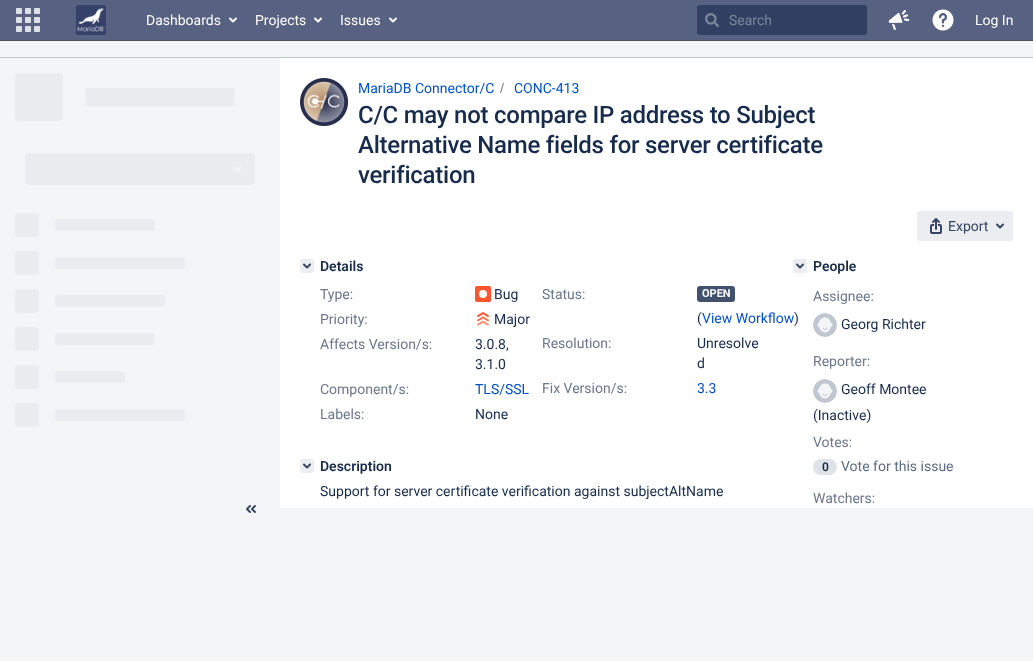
(async () => {
const canvas = document.querySelector("canvas")
canvas.width = 1033
canvas.height = 661
const c = canvas.getContext("2d")
c.miterLimit = 4
c.fontKerning = "normal"
function T(s,x,y){c.fillText(s,x,y)}
function R(x,y,w,h){c.fillRect(x,y,w,h)}
function Q(x,y,w,h,r){c.beginPath();c.roundRect(x,y,w,h,r);c.fill()}
async function I(src,x,y,w,h){const img=new Image();img.src=src;await img.decode();c.drawImage(img,x,y,w,h)}
let path
c.fillStyle="#f4f5f7"
R(0,0,1033,661)
c.fillStyle="#576181"
R(0,0,1033,40)
c.fillStyle="#525254"
R(0,40,1033,1)
await I("1.png",16,8,24,24)
await I("2.png",76,5,30,30)
c.font="14px Roboto"
c.fillStyle="#fff"
T("Dashboards",146,25)
await I("3.png",229,17,8,6)
T("Projects",255,25)
await I("3.png",314,17,8,6)
T("Issues",340,25)
await I("3.png",389,17,8,6)
c.fillStyle="#324163"
Q(697,5,170,30,3)
await I("4.png",705,13,14,14)
c.fillStyle="#7a869a"
T("Search",729,25)
await I("5.png",888,10,22,20)
await I("6.png",932,9,22,22)
c.fillStyle="#fff"
T("Log In",975,25)
c.fillStyle="#c1c7d0"
R(0,57,1033,1)
await I("7.png",15,73,240,354)
await I("8.png",246,505,10,8)
c.fillStyle="#fff"
R(280,58,753,450)
await I("9.png",300,78,48,48)
c.fillStyle="#0052cc"
T("MariaDB Connector/C",358,93)
c.fillStyle="#707070"
path = new Path2D("M501 93l3-10h-1l-3 10z")
c.fill(path)
c.fillStyle="#0052cc"
T("CONC-413",514,93)
c.letterSpacing="-0.25px"
c.font="500 24px Roboto"
c.fillStyle="#172b4d"
T("C/C may not compare IP address to Subject",358,123)
T("Alternative Name fields for server certificate",358,153)
T("verification",358,183)
c.fillStyle="#ebedf0"
Q(917,211,96,30,3)
await I("10.png",930,218,12,16)
c.letterSpacing="0px"
c.font="14px Roboto"
c.fillStyle="#344563"
T("Export",948,231)
await I("11.png",996,223,8,6)
c.fillStyle="#ebedf0"
Q(300,259,14,14,3)
await I("12.png",303,263,8,6)
c.font="600 14px Roboto"
c.fillStyle="#172b4d"
T("Details",320,271)
c.font="14px Roboto"
c.fillStyle="#6b778c"
T("Type:",320,299)
await I("13.png",475,286,16,16)
c.fillStyle="#172b4d"
T("Bug",494,299)
c.fillStyle="#6b778c"
T("Status:",542,299)
c.fillStyle="#42526e"
Q(697,286,38,16,3)
c.font="bold 11px Roboto"
c.fillStyle="#fff"
T("OPEN",702,297)
c.font="14px Roboto"
c.fillStyle="#172b4d"
T("(",697,323)
c.fillStyle="#0052cc"
T("View Workflow",702,323)
c.fillStyle="#172b4d"
T(")",794,323)
c.fillStyle="#6b778c"
T("Priority:",320,324)
await I("14.png",477,312,12,14)
c.fillStyle="#172b4d"
T("Major",494,324)
c.fillStyle="#6b778c"
T("Affects Version/s:",320,349)
c.fillStyle="#172b4d"
T("3.0.8,",475,349)
T("3.1.0",475,369)
c.fillStyle="#6b778c"
T("Resolution:",542,348)
c.fillStyle="#172b4d"
T("Unresolve",697,348)
T("d",697,368)
c.fillStyle="#6b778c"
T("Component/s:",320,394)
c.fillStyle="#0052cc"
T("TLS/SSL",475,394)
c.fillStyle="#6b778c"
T("Fix Version/s:",542,393)
c.fillStyle="#0052cc"
T("3.3",697,393)
c.fillStyle="#6b778c"
T("Labels:",320,419)
c.fillStyle="#172b4d"
T("None",475,419)
c.fillStyle="#ebedf0"
Q(300,459,14,14,3)
await I("12.png",303,463,8,6)
c.font="600 14px Roboto"
c.fillStyle="#172b4d"
T("Description",320,471)
c.font="14px Roboto"
T("Support for server certificate verification against subjectAltName",320,496)
c.fillStyle="#ebedf0"
Q(793,259,14,14,3)
await I("12.png",796,263,8,6)
c.font="600 14px Roboto"
c.fillStyle="#172b4d"
T("People",813,271)
c.font="14px Roboto"
c.fillStyle="#6b778c"
T("Assignee:",813,301)
await I("15.png",813,313,24,24)
c.fillStyle="#172b4d"
T("Georg Richter",841,329)
c.fillStyle="#6b778c"
T("Reporter:",813,366)
await I("15.png",813,379,24,24)
c.fillStyle="#172b4d"
T("Geoff Montee",841,394)
T("(Inactive)",813,420)
c.fillStyle="#6b778c"
T("Votes:",813,447)
c.fillStyle="#dfe2e6"
Q(813,459,24,16,8)
c.font="600 12px Roboto"
c.fillStyle="#172b4d"
T("0",822,471)
c.font="14px Roboto"
c.fillStyle="#5e6c84"
T("Vote for this issue",841,471)
c.fillStyle="#6b778c"
T("Watchers:",813,503)
})()
